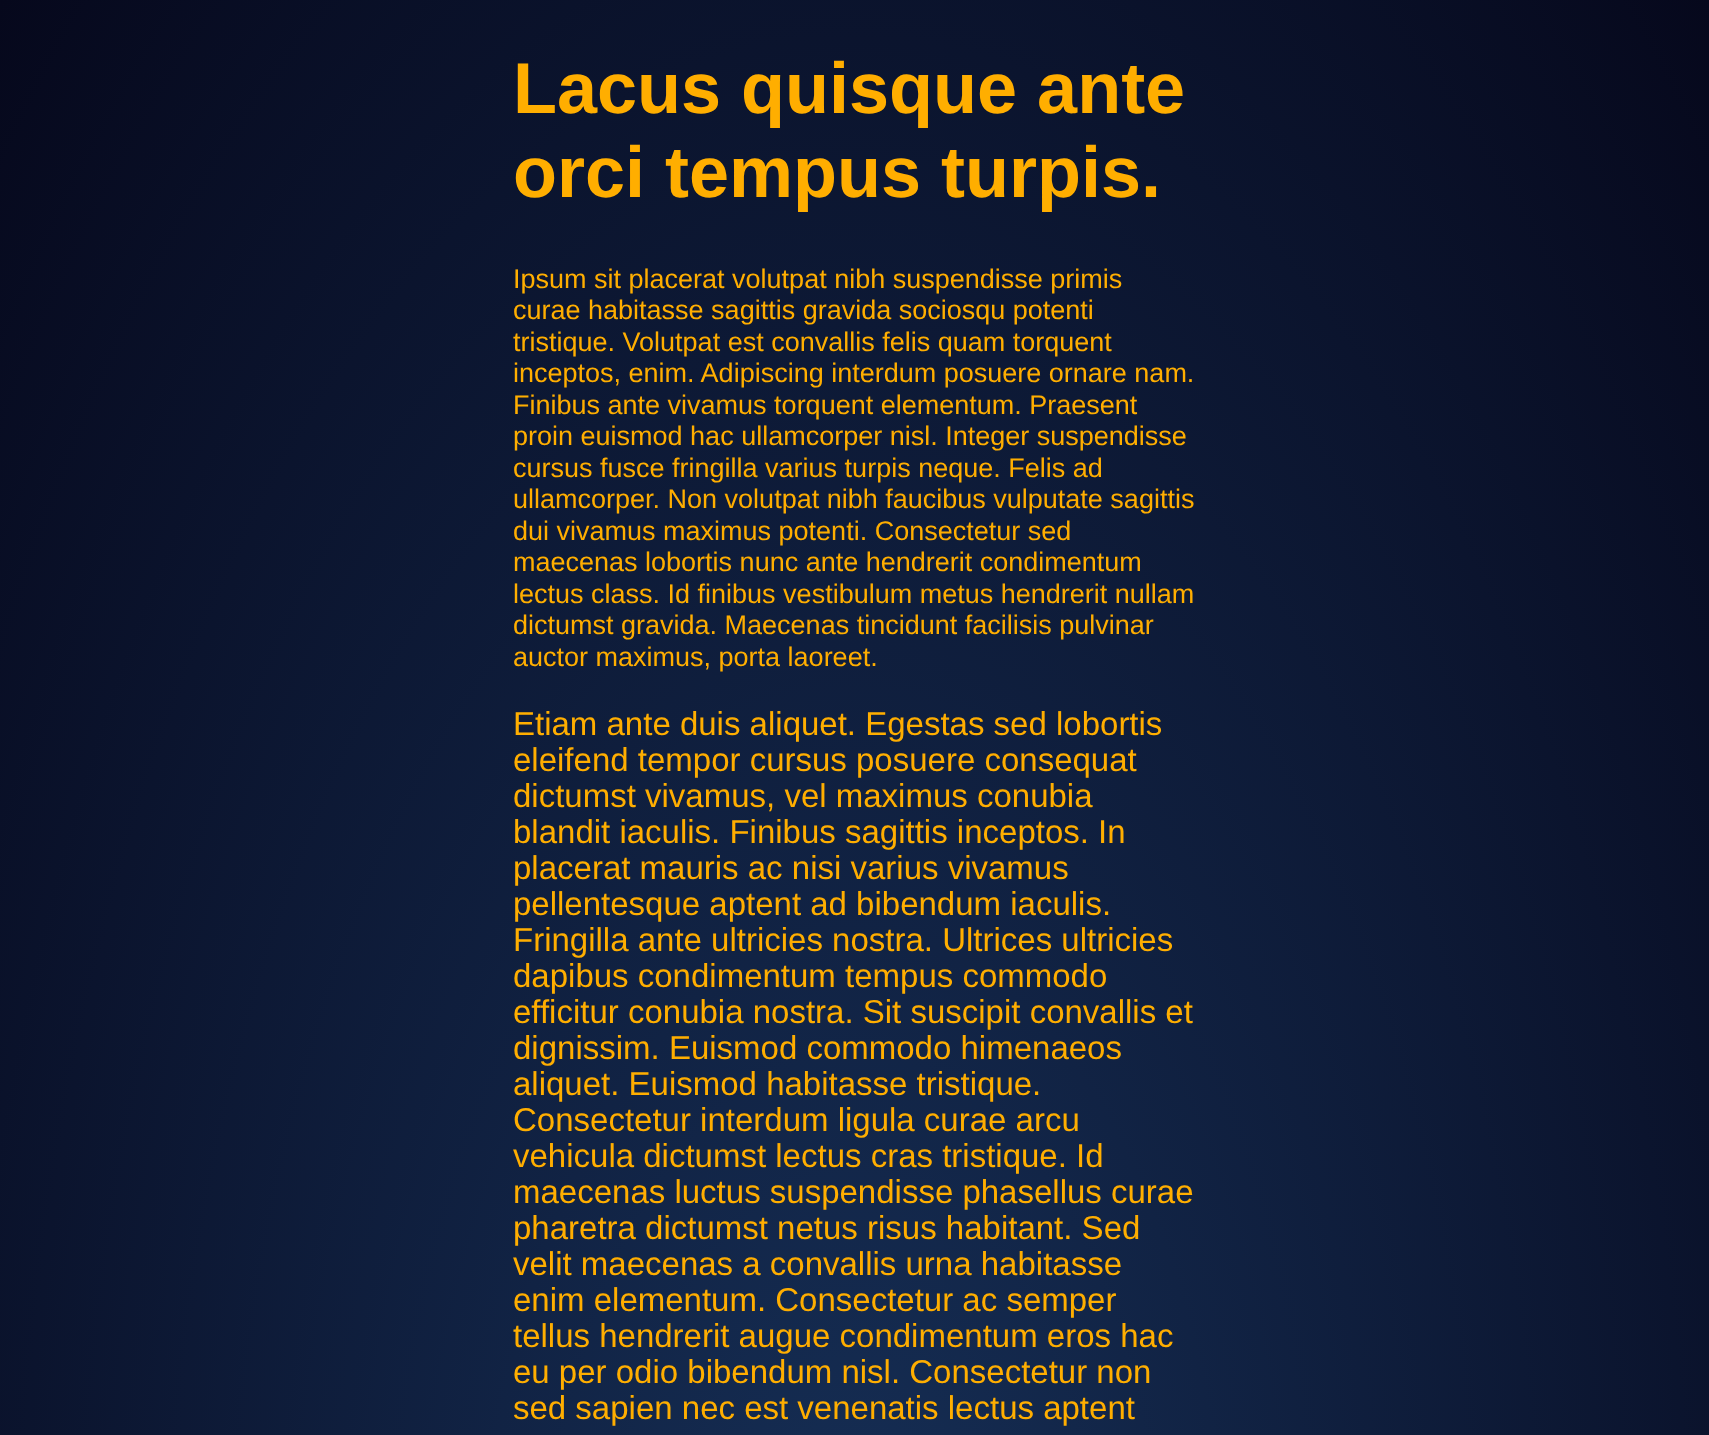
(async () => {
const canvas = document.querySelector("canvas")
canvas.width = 1709
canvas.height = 1435
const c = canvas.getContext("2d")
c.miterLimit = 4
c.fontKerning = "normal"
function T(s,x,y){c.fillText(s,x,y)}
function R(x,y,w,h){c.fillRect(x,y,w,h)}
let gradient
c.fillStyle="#fff"
R(0,0,1709,1435)
gradient = c.createRadialGradient(855,854.81,0,855,854.81,1209)
gradient.addColorStop(0,"#162f56")
gradient.addColorStop(1,"#06081c")
c.fillStyle = gradient
c.beginPath()
c.rect(0,0,1709,1435)
c.save()
c.clip()
c.scale(1,2345 / 1209)
c.fillRect(0,0,1709,740)
c.restore()
c.font="bold 72px Liberation Sans"
c.fillStyle="#ffae00"
T("Lacus quisque ante",513,113)
T("orci tempus turpis.",513,197)
c.font="27px Liberation Sans"
T("Ipsum sit placerat volutpat nibh suspendisse primis",513,288)
T("curae habitasse sagittis gravida sociosqu potenti",513,319)
T("tristique. Volutpat est convallis felis quam torquent",513,351)
T("inceptos, enim. Adipiscing interdum posuere ornare nam.",513,382)
T("Finibus ante vivamus torquent elementum. Praesent",513,414)
T("proin euismod hac ullamcorper nisl. Integer suspendisse",513,445)
T("cursus fusce fringilla varius turpis neque. Felis ad",513,477)
T("ullamcorper. Non volutpat nibh faucibus vulputate sagittis",513,508)
T("dui vivamus maximus potenti. Consectetur sed",513,540)
T("maecenas lobortis nunc ante hendrerit condimentum",513,571)
T("lectus class. Id finibus vestibulum metus hendrerit nullam",513,603)
T("dictumst gravida. Maecenas tincidunt facilisis pulvinar",513,634)
T("auctor maximus, porta laoreet.",513,666)
c.font="33px Liberation Sans"
T("Etiam ante duis aliquet. Egestas sed lobortis",513,735)
T("eleifend tempor cursus posuere consequat",513,771)
T("dictumst vivamus, vel maximus conubia",513,807)
T("blandit iaculis. Finibus sagittis inceptos. In",513,843)
T("placerat mauris ac nisi varius vivamus",513,879)
T("pellentesque aptent ad bibendum iaculis.",513,915)
T("Fringilla ante ultricies nostra. Ultrices ultricies",513,951)
T("dapibus condimentum tempus commodo",513,987)
T("efficitur conubia nostra. Sit suscipit convallis et",513,1023)
T("dignissim. Euismod commodo himenaeos",513,1059)
T("aliquet. Euismod habitasse tristique.",513,1095)
T("Consectetur interdum ligula curae arcu",513,1131)
T("vehicula dictumst lectus cras tristique. Id",513,1167)
T("maecenas luctus suspendisse phasellus curae",513,1203)
T("pharetra dictumst netus risus habitant. Sed",513,1239)
T("velit maecenas a convallis urna habitasse",513,1275)
T("enim elementum. Consectetur ac semper",513,1311)
T("tellus hendrerit augue condimentum eros hac",513,1347)
T("eu per odio bibendum nisl. Consectetur non",513,1383)
T("sed sapien nec est venenatis lectus aptent",513,1419)
})()
